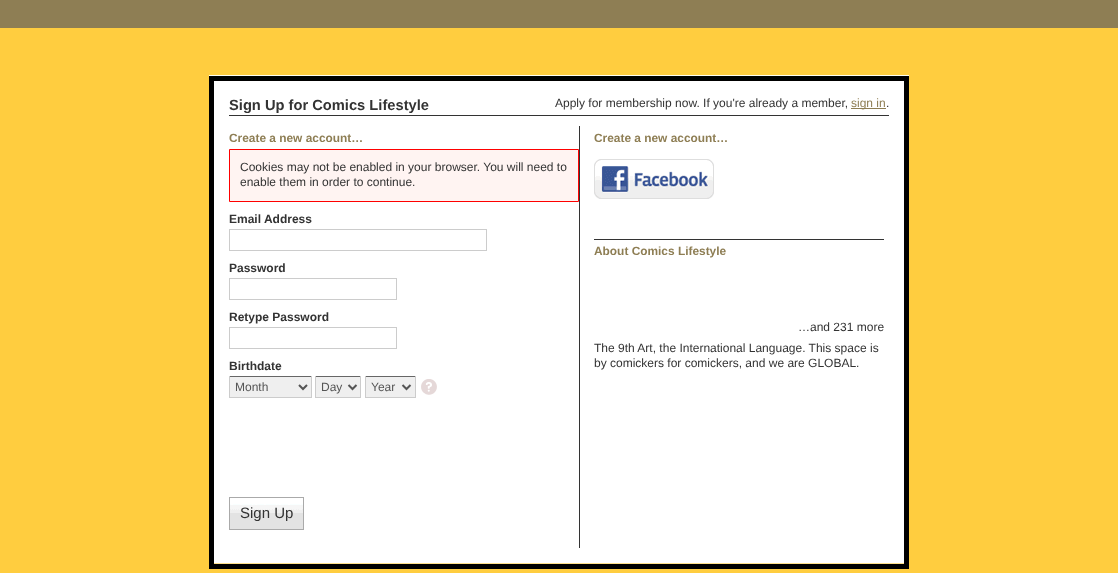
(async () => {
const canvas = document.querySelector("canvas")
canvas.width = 1118
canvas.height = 573
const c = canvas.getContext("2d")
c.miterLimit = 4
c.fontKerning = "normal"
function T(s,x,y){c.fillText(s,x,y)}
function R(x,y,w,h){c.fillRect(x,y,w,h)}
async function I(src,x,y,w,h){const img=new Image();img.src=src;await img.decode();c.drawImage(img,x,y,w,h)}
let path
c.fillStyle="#ffcd3f"
R(0,0,1118,573)
c.fillStyle="#8e7e54"
R(0,0,1118,28)
c.fillStyle="#fffff0"
R(209,75,700,1)
c.fillStyle="#ffe18c"
R(214,563,690,1)
c.strokeStyle="#000"
c.lineWidth=5
c.strokeRect(211.5,78.5,695,488)
c.fillStyle="#fff"
R(214,81,690,482)
c.fillStyle="#333"
R(229,115,660,1)
c.font="bold 14.7px Liberation Sans"
T("Sign Up for Comics Lifestyle",229,110)
c.font="12px Liberation Sans"
T("Apply for membership now. If you're already a member,",555,107)
c.fillStyle="#8e7e54"
R(851,108,35,1)
T("sign in",851,107)
c.fillStyle="#333"
T(".",886,107)
R(579,126,1,422)
c.font="bold 11.9px Liberation Sans"
c.fillStyle="#8e7e54"
T("Create a new account…",229,142)
c.fillStyle="#fff4f2"
c.beginPath()
c.rect(229.5,149.5,349,52)
c.fill()
c.strokeStyle="#f00"
c.lineWidth=1
c.stroke()
c.font="12px Liberation Sans"
c.fillStyle="#333"
T("Cookies may not be enabled in your browser. You will need to",240,171)
T("enable them in order to continue.",240,186)
c.font="bold 12px Liberation Sans"
T("Email Address",229,223)
c.strokeStyle="#ccc"
c.strokeRect(229.5,229.5,257,21)
T("Password",229,272)
c.strokeRect(229.5,278.5,167,21)
T("Retype Password",229,321)
c.strokeRect(229.5,327.5,167,21)
T("Birthdate",229,370)
c.fillStyle="#efefef"
R(230,377,81,20)
c.fillStyle="#666"
R(229,376,83,1)
c.fillStyle="#ccc"
R(311,376,1,22)
R(229,397,83,1)
R(229,376,1,22)
path = new Path2D("M299 385l4 4l4-4")
c.strokeStyle="#555"
c.lineWidth=2
c.stroke(path)
c.font="12px Liberation Sans"
c.fillStyle="#555"
T("Month",235,391)
c.fillStyle="#efefef"
R(316,377,44,20)
c.fillStyle="#666"
R(315,376,46,1)
c.fillStyle="#ccc"
R(360,376,1,22)
R(315,397,46,1)
R(315,376,1,22)
path = new Path2D("M348.5 385l4 4l4-4")
c.stroke(path)
c.fillStyle="#555"
T("Day",321,391)
c.fillStyle="#efefef"
R(366,377,49,20)
c.fillStyle="#666"
R(365,376,51,1)
c.fillStyle="#ccc"
R(415,376,1,22)
R(365,397,51,1)
R(365,376,1,22)
path = new Path2D("M402.5 385l4 4l4-4")
c.stroke(path)
c.fillStyle="#555"
T("Year",371,391)
await I("1.png",421,379,16,16)
c.fillStyle="#e3e3e3"
R(230,513,73,16)
await I("2.png",230,498,73,15)
c.strokeStyle="#aaa"
c.lineWidth=1
c.strokeRect(229.5,497.5,74,32)
c.font="15px Liberation Sans"
c.fillStyle="#333"
T("Sign Up",240,518)
c.font="bold 11.9px Liberation Sans"
c.fillStyle="#8e7e54"
T("Create a new account…",594,142)
c.fillStyle="#333"
R(594,239,290,1)
await I("3.png",594,159,120,40)
c.fillStyle="#8e7e54"
T("About Comics Lifestyle",594,255)
c.font="12px Liberation Sans"
c.fillStyle="#333"
T("…and 231 more",798,331)
T("The 9th Art, the International Language. This space is",594,352)
T("by comickers for comickers, and we are GLOBAL.",594,367)
})()
